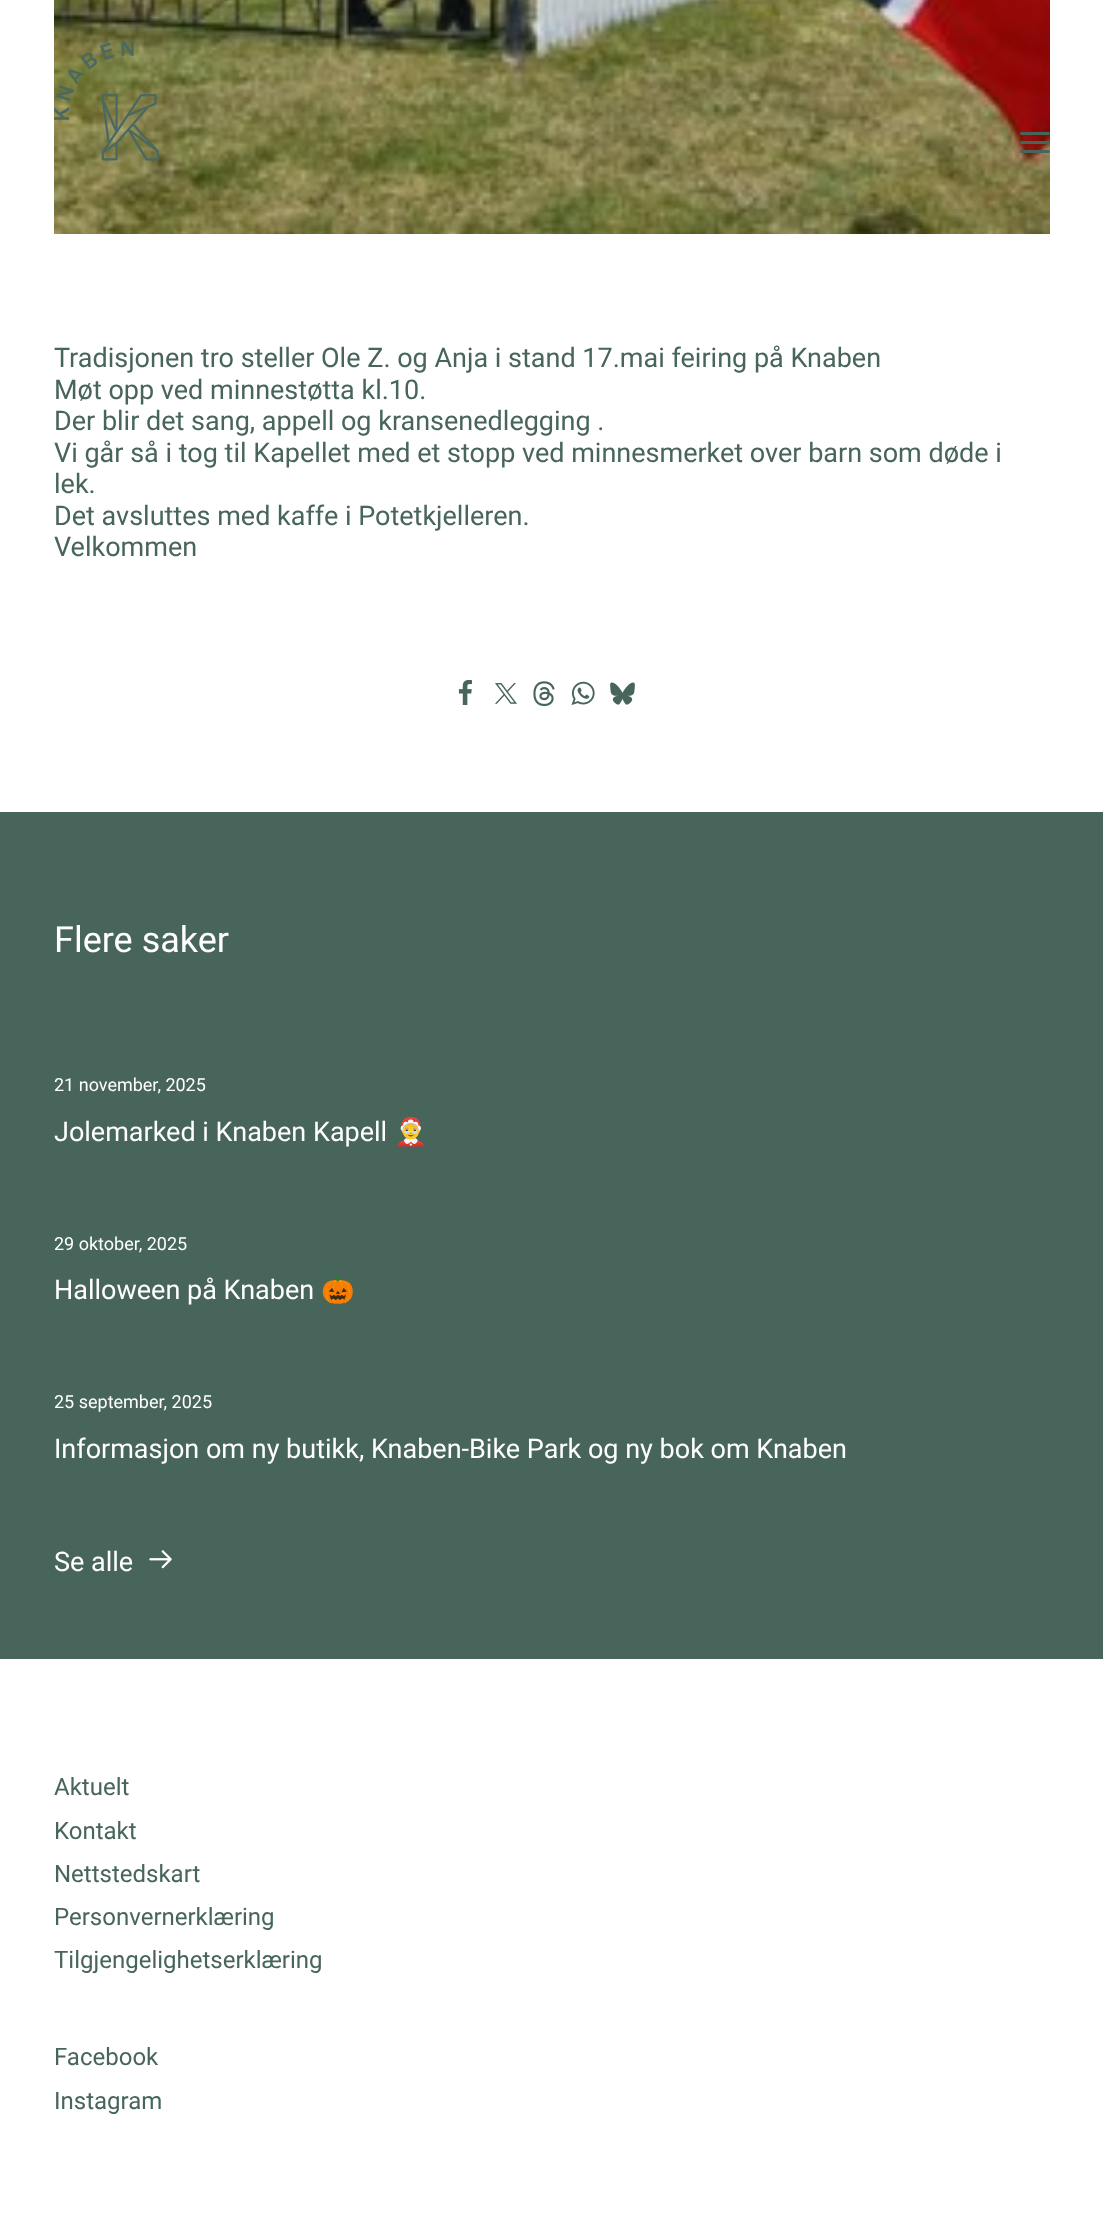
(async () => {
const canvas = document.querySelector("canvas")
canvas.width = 1103
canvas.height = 2233
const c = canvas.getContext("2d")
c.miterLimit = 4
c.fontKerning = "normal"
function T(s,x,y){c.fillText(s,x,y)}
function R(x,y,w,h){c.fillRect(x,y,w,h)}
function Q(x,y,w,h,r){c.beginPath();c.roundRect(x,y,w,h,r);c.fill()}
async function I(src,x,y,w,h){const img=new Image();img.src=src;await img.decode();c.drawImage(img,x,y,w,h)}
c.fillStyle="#fff"
R(0,0,1103,2233)
await I("2.png",54,0,996,234)
await I("1.png",54,41,105,120)
c.fillStyle="#48655b"
Q(1020,141,30,3,1.5)
Q(1020,132,30,3,1.5)
Q(1020,150,30,3,1.5)
c.font="27px Roboto"
T("Tradisjonen tro steller Ole Z. og Anja i stand 17.mai feiring på Knaben",54,367)
T("Møt opp ved minnestøtta kl.10.",54,399)
T("Der blir det sang, appell og kransenedlegging .",54,430)
T("Vi går så i tog til Kapellet med et stopp ved minnesmerket over barn som døde i",54,462)
T("lek.",54,493)
T("Det avsluttes med kaffe i Potetkjelleren.",54,525)
T("Velkommen",54,556)
await I("3.png",458,679,14,26)
await I("4.png",495,683,22,21)
await I("5.png",533,681,22,26)
await I("6.png",571,681,24,24)
await I("7.png",610,682,25,23)
R(0,812,1103,847)
c.font="36px Roboto"
c.fillStyle="#fff"
T("Flere saker",54,952)
c.font="18px Roboto"
T("21 november, 2025",54,1091)
c.font="27px Roboto"
T("Jolemarked i Knaben Kapell",54,1141)
c.font="27px Noto Color Emoji"
T("🤶",394,1141)
c.font="18px Roboto"
T("29 oktober, 2025",54,1250)
c.font="27px Roboto"
T("Halloween på Knaben",54,1299)
c.font="27px Noto Color Emoji"
T("🎃",321,1299)
c.font="18px Roboto"
T("25 september, 2025",54,1408)
c.font="27px Roboto"
T("Informasjon om ny butikk, Knaben-Bike Park og ny bok om Knaben",54,1458)
T("Se alle",54,1571)
await I("8.png",149,1550,23,19)
c.font="24px Roboto"
c.fillStyle="#48655b"
T("Aktuelt",54,1795)
T("Kontakt",54,1839)
T("Nettstedskart",54,1882)
T("Personvernerklæring",54,1925)
T("Tilgjengelighetserklæring",54,1968)
T("Facebook",54,2065)
T("Instagram",54,2109)
})()
